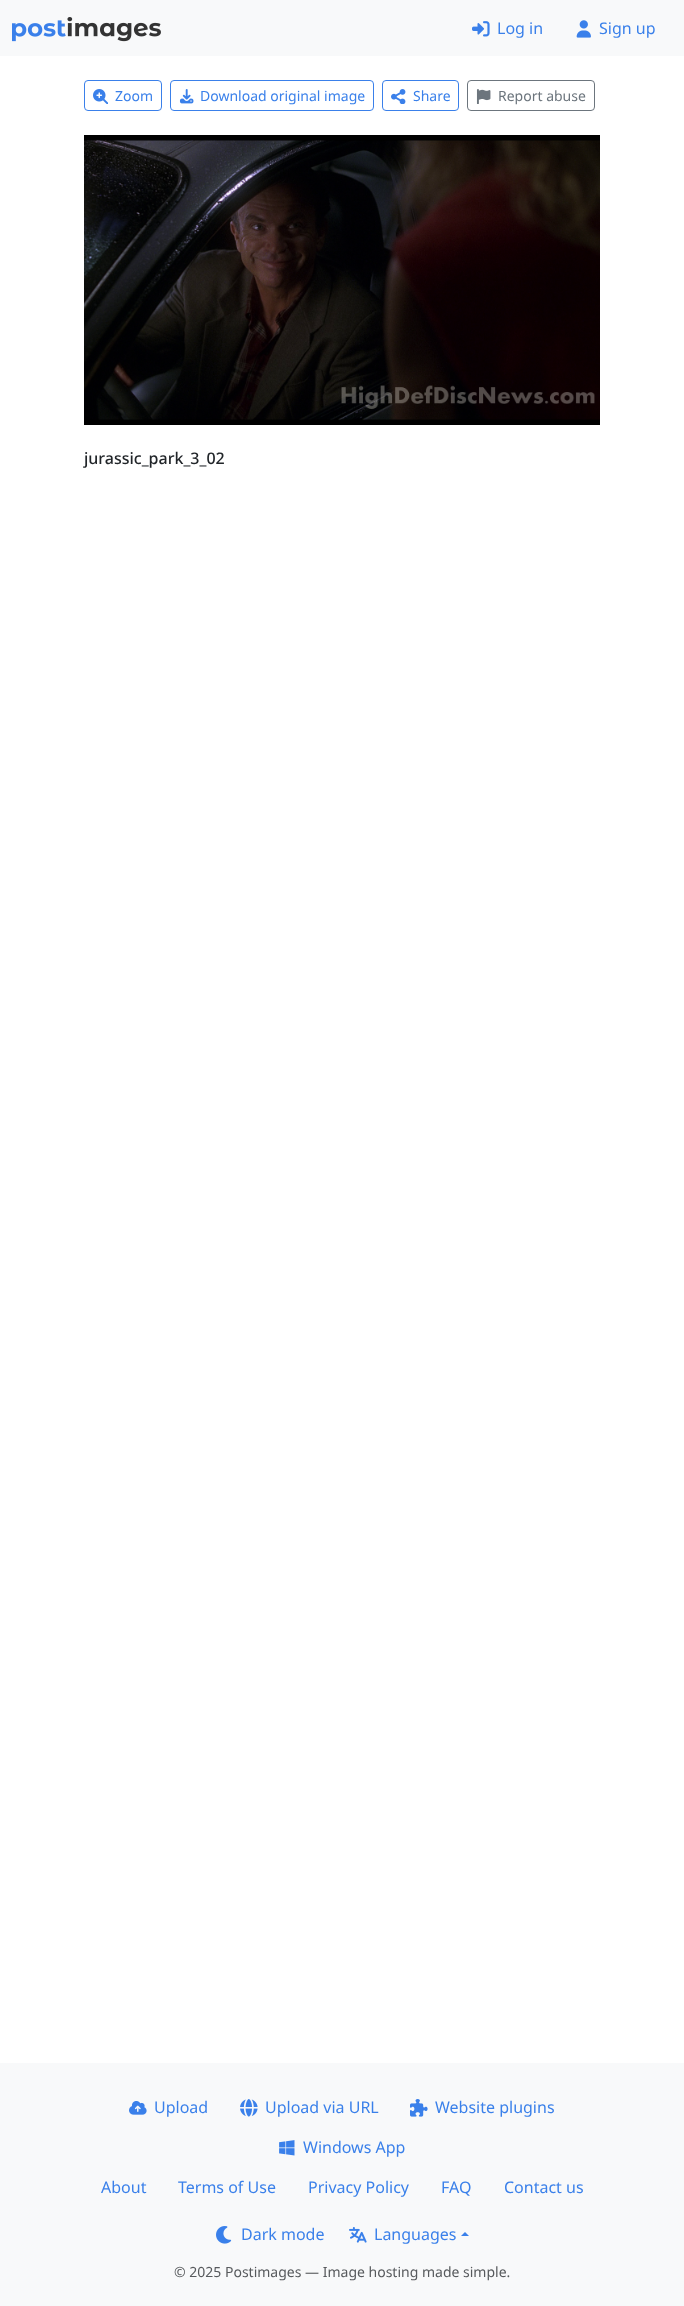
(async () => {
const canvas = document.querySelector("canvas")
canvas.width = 684
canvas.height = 2306
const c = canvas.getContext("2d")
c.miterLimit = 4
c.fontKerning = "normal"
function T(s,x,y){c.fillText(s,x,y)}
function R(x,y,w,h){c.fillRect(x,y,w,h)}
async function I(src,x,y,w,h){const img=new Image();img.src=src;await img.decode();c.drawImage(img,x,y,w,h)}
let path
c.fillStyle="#fff"
R(0,0,684,2306)
c.fillStyle="#f8f9fa"
R(0,0,684,56)
await I("1.png",12,17,149,25)
await I("2.png",472,21,18,16)
c.font="16px Noto Sans"
c.fillStyle="#3a80ea"
T("Log in",497,34)
await I("3.png",576,20,15,18)
T("Sign up",599,34)
c.beginPath()
c.roundRect(84.5,80.5,77,30,3.5)
c.strokeStyle="#3a80ea"
c.stroke()
await I("4.png",93,89,15,15)
c.font="14px Noto Sans"
T("Zoom",115,101)
c.beginPath()
c.roundRect(170.5,80.5,203,30,3.5)
c.stroke()
await I("5.png",179,89,15,15)
T("Download original image",200,101)
c.beginPath()
c.roundRect(382.5,80.5,76,30,3.5)
c.stroke()
await I("6.png",391,89,15,15)
T("Share",413,101)
c.beginPath()
c.roundRect(467.5,80.5,127,30,3.5)
c.strokeStyle="#6c757d"
c.stroke()
await I("7.png",476,89,15,15)
c.fillStyle="#6c757d"
T("Report abuse",498,101)
await I("8.png",84,135,516,290)
c.font="500 16px Noto Sans"
c.fillStyle="#212529"
T("jurassic_park_3_02",84,464)
c.fillStyle="#f8f9fa"
R(0,2063,684,243)
await I("9.png",129,2101,18,14)
c.font="16px Noto Sans"
c.fillStyle="#3a80ea"
T("Upload",154,2113)
await I("10.png",240,2099,18,18)
T("Upload via URL",265,2113)
await I("11.png",410,2099,18,18)
T("Website plugins",435,2113)
await I("12.png",279,2140,16,16)
T("Windows App",303,2153)
T("About",101,2193)
T("Terms of Use",178,2193)
T("Privacy Policy",308,2193)
T("FAQ",441,2193)
T("Contact us",504,2193)
await I("13.png",216,2226,16,18)
T("Dark mode",241,2240)
await I("14.png",349,2227,18,16)
T("Languages",374,2240)
path = new Path2D("M469 2236h-8l4-4z")
c.fill(path)
c.font="14px Noto Sans"
c.fillStyle="#575a5d"
T("© 2025 Postimages — Image hosting made simple.",174,2277)
})()
